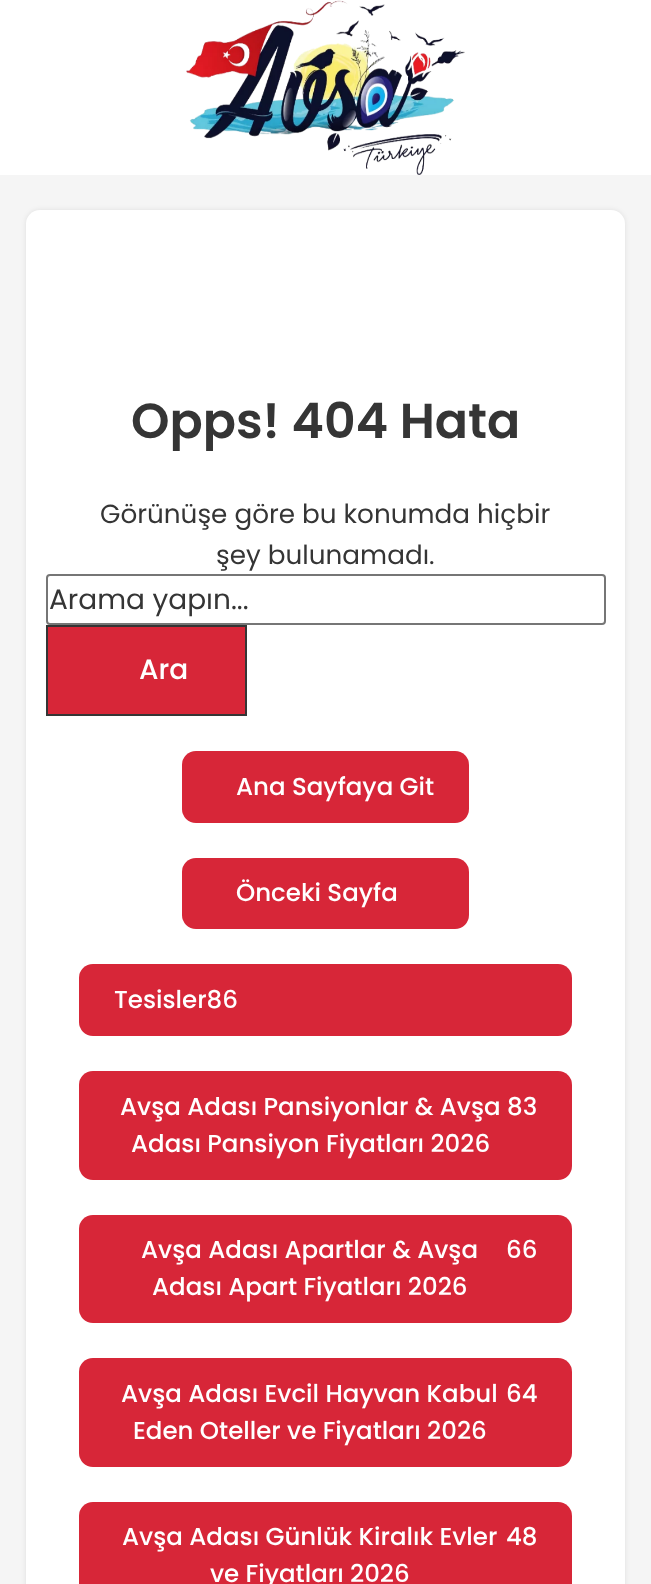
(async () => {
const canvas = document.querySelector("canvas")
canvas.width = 651
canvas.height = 1584
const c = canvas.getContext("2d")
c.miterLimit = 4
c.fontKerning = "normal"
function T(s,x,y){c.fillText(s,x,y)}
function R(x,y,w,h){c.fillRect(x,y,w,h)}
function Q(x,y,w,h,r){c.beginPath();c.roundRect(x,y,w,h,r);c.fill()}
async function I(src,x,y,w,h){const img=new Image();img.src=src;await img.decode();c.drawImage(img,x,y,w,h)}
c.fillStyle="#f5f5f5"
R(0,0,651,1584)
c.fillStyle="#fff"
R(0,0,651,175)
await I("1.png",186,0,279,175)
c.fillStyle="#00000017"
c.filter="blur(2.5px)"
c.beginPath()
c.roundRect(26,210,599,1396,14)
c.fill()
c.filter="none"
c.fillStyle="#fff"
Q(26,210,599,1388,14)
c.font="600 49px Poppins"
c.fillStyle="#353535"
T("Opps! 404 Hata",131,438)
c.font="26.25px Poppins"
T("Görünüşe göre bu konumda hiçbir",100,523)
T("şey bulunamadı.",216,564)
c.beginPath()
c.roundRect(47,575,558,49,3)
c.strokeStyle="#767676"
c.lineWidth=2
c.stroke()
c.font="28px Poppins"
T("Arama yapın...",49,609)
c.fillStyle="#d72638"
c.beginPath()
c.rect(47,626,199,89)
c.fill()
c.strokeStyle="#353535"
c.stroke()
c.font="500 28px Poppins"
c.fillStyle="#fff"
T("Ara",139,679)
c.fillStyle="#d72638"
Q(182,751,287,72,14)
c.font="500 24.5px Poppins"
c.fillStyle="#fff"
T("Ana Sayfaya Git",236,795)
c.fillStyle="#d72638"
Q(182,858,287,71,14)
c.fillStyle="#fff"
T("Önceki Sayfa",236,901)
c.fillStyle="#d72638"
Q(79,964,493,72,14)
c.fillStyle="#fff"
T("Tesisler86",114,1008)
c.fillStyle="#d72638"
Q(79,1071,493,109,14)
c.fillStyle="#fff"
T("Avşa Adası Pansiyonlar & Avşa 83",120,1115)
T("Adası Pansiyon Fiyatları 2026",131,1152)
c.fillStyle="#d72638"
Q(79,1215,493,108,14)
c.fillStyle="#fff"
T("Avşa Adası Apartlar & Avşa",141,1258)
T("Adası Apart Fiyatları 2026",152,1295)
T("66",506,1258)
c.fillStyle="#d72638"
Q(79,1358,493,109,14)
c.fillStyle="#fff"
T("Avşa Adası Evcil Hayvan Kabul",121,1402)
T("Eden Oteller ve Fiyatları 2026",133,1439)
T("64",506,1402)
c.fillStyle="#d72638"
Q(79,1502,493,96,14)
c.fillStyle="#fff"
T("Avşa Adası Günlük Kiralık Evler",122,1545)
T("ve Fiyatları 2026",210,1582)
T("48",506,1545)
})()
